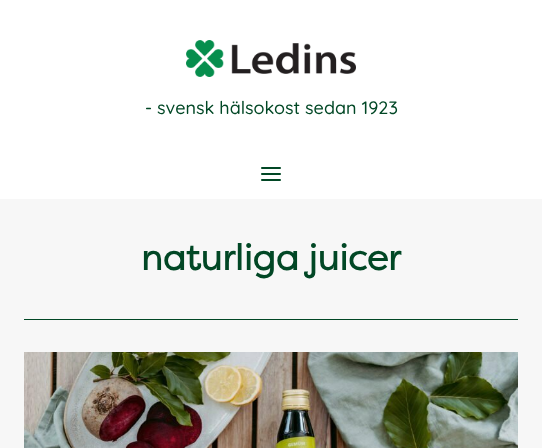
(async () => {
const canvas = document.querySelector("canvas")
canvas.width = 542
canvas.height = 448
const c = canvas.getContext("2d")
c.miterLimit = 4
c.fontKerning = "normal"
function T(s,x,y){c.fillText(s,x,y)}
function R(x,y,w,h){c.fillRect(x,y,w,h)}
async function I(src,x,y,w,h){const img=new Image();img.src=src;await img.decode();c.drawImage(img,x,y,w,h)}
c.fillStyle="#f7f7f7"
R(0,0,542,448)
c.fillStyle="#fff"
R(0,0,542,199)
await I("1.png",186,40,170,37)
c.font="500 18px Quicksand"
c.fillStyle="#014725"
T("- svensk hälsokost sedan 1923",145,114)
await I("2.png",261,167,20,14)
R(24,319,494,1)
c.font="bold 36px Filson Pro"
T("naturliga juicer",141,270)
await I("3.png",24,352,494,96)
})()
